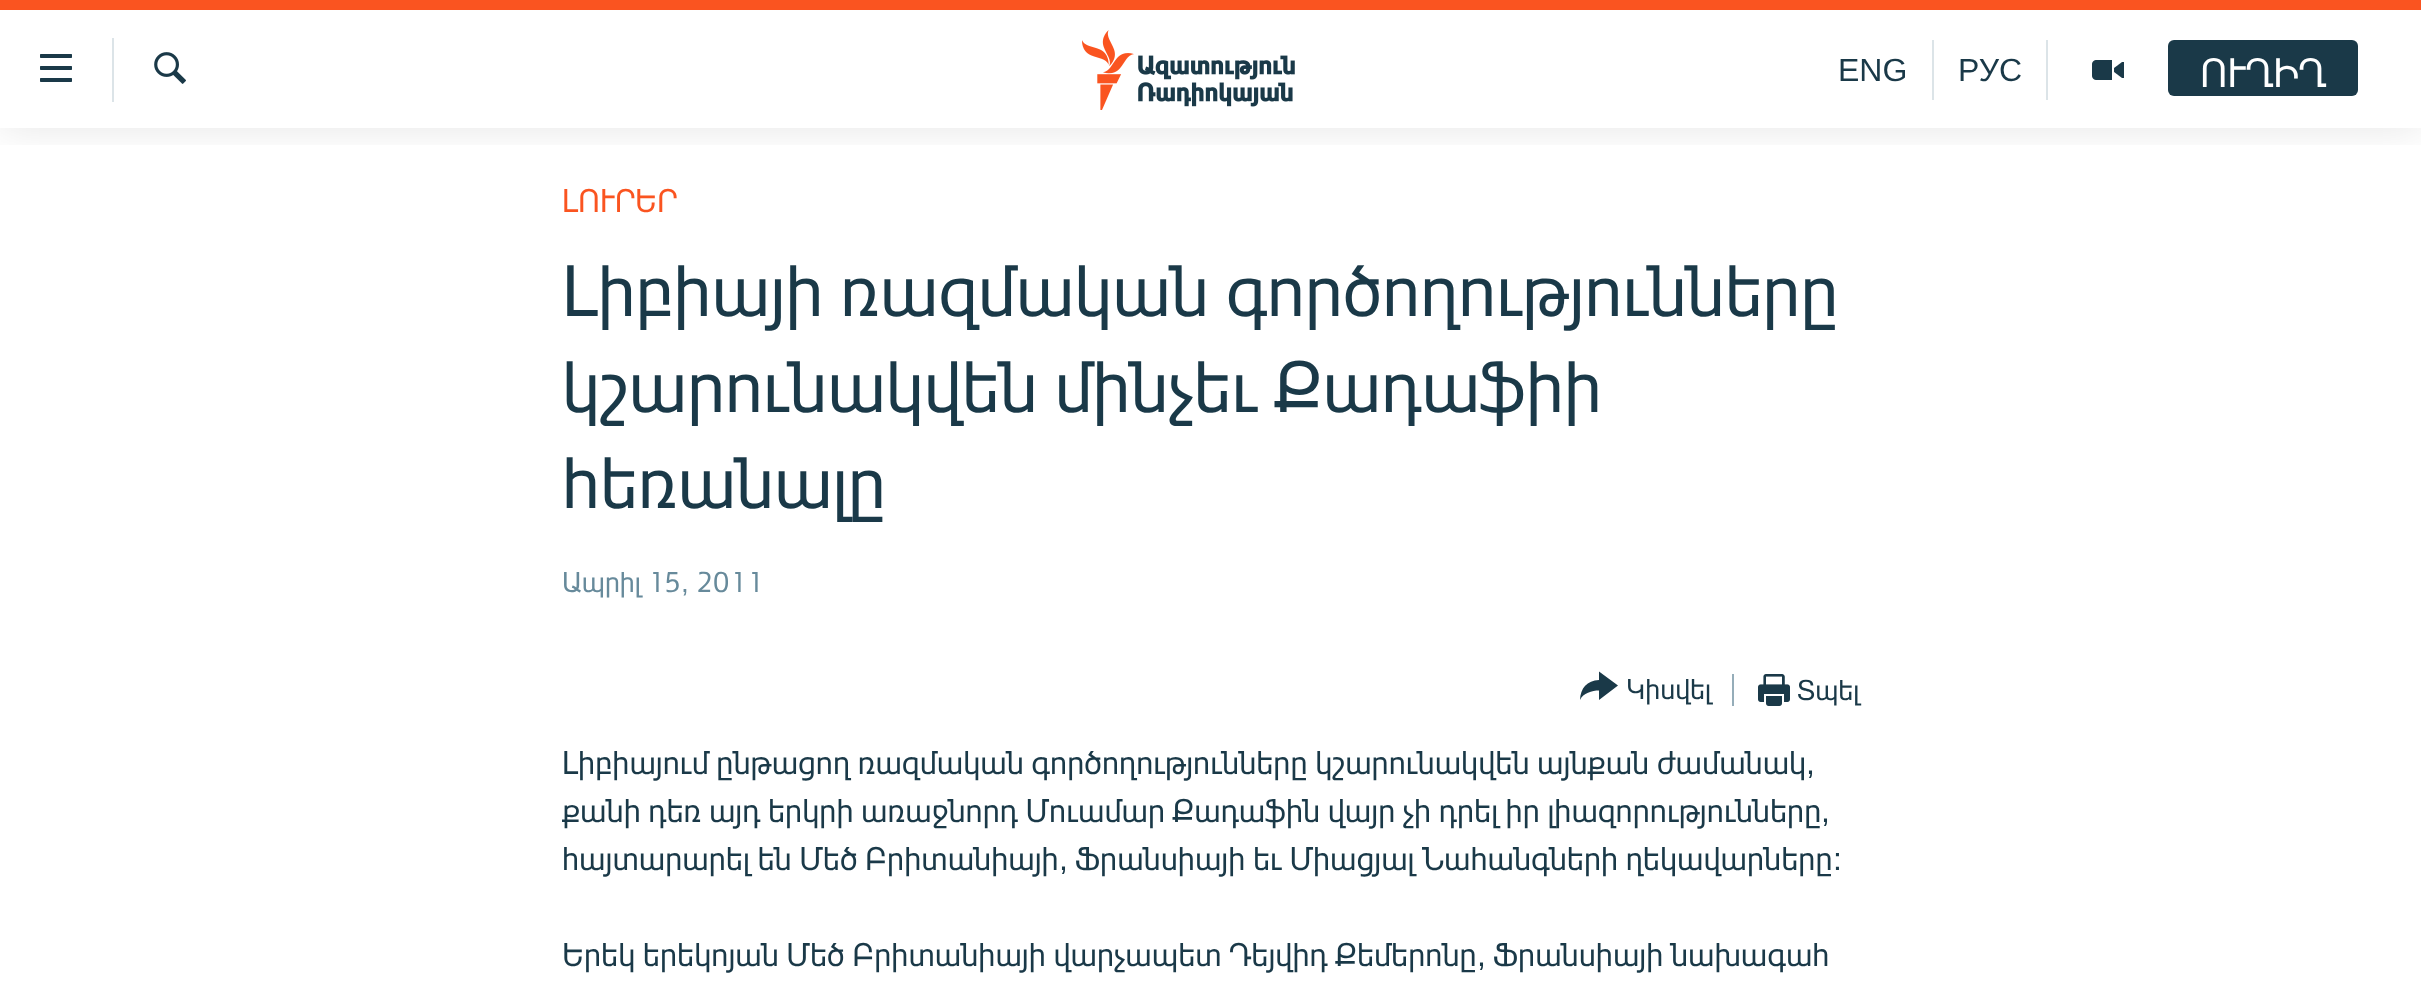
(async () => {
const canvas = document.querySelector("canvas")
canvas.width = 2421
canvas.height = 999
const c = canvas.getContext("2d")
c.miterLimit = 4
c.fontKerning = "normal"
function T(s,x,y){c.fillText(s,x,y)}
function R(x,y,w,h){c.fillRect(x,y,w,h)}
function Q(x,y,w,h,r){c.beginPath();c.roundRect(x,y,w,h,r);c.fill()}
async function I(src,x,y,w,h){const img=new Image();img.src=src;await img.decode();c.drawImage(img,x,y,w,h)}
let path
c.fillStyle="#fff"
R(0,0,2421,999)
c.save()
c.beginPath()
c.rect(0,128,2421,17)
c.clip()
c.fillStyle="#0000001a"
c.filter="blur(20px)"
c.beginPath()
c.rect(0,0,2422,128)
c.fill()
c.filter="none"
c.restore()
c.fillStyle="#fa5420"
R(0,0,2421,10)
await I("1.png",40,54,32,28)
c.fillStyle="#dce4e8"
R(112,38,2,64)
await I("2.png",154,52,32,32)
await I("3.png",1082,30,213,80)
R(1932,40,2,60)
c.font="32px Liberation Sans"
c.fillStyle="#1a3948"
T("ENG",1838,81)
c.fillStyle="#dce4e8"
R(2046,40,2,60)
c.fillStyle="#1a3948"
T("РУС",1958,81)
await I("4.png",2092,60,32,20)
Q(2168,40,190,56,6)
c.font="40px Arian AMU"
c.fillStyle="#fff"
T("ՈՒՂԻՂ",2200,87)
c.font="32px Arian AMU"
c.fillStyle="#fa5420"
T("ԼՈՒՐԵՐ",562,212)
c.font="71px Arian AMU"
c.fillStyle="#1a3948"
T("Լիբիայի ռազմական գործողությունները",562,316)
T("կշարունակվեն մինչեւ Քադաֆիի",562,412)
T("հեռանալը",562,508)
c.font="28px Arian AMU"
c.fillStyle="#678a9b"
T("Ապրիլ 15",562,592)
c.font="28px Liberation Sans"
T(",",681,592)
c.font="28px Arian AMU"
T("2011",696,592)
c.fillStyle="#1a3948"
path = new Path2D("M1580 700c.5-12 7-19.5 19-20v-8.5l19 14l-19 14.5v-9.5c-7 0-16 2.5-19 9.5z")
c.fill(path)
T("Կիսվել",1626,699)
c.fillStyle="#95adb9"
R(1732,674,2,32)
await I("5.png",1758,674,32,32)
c.fillStyle="#1a3948"
T("Տպել",1797,700)
c.font="32px Arian AMU"
T("Լիբիայում ընթացող ռազմական գործողությունները կշարունակվեն այնքան ժամանակ",562,774)
c.font="32px Liberation Sans"
T(",",1806,774)
c.font="32px Arian AMU"
T("քանի դեռ այդ երկրի առաջնորդ Մուամար Քադաֆին վայր չի դրել իր լիազորությունները",562,822)
c.font="32px Liberation Sans"
T(",",1821,822)
c.font="32px Arian AMU"
T("հայտարարել են Մեծ Բրիտանիայի",562,870)
c.font="32px Liberation Sans"
T(",",1059,870)
c.font="32px Arian AMU"
T("Ֆրանսիայի եւ Միացյալ Նահանգների ղեկավարները",1075,870)
c.font="32px Liberation Sans"
T(":",1833,870)
c.font="32px Arian AMU"
T("Երեկ երեկոյան Մեծ Բրիտանիայի վարչապետ Դեյվիդ Քեմերոնը",562,966)
c.font="32px Liberation Sans"
T(",",1477,966)
c.font="32px Arian AMU"
T("Ֆրանսիայի նախագահ",1493,966)
})()
